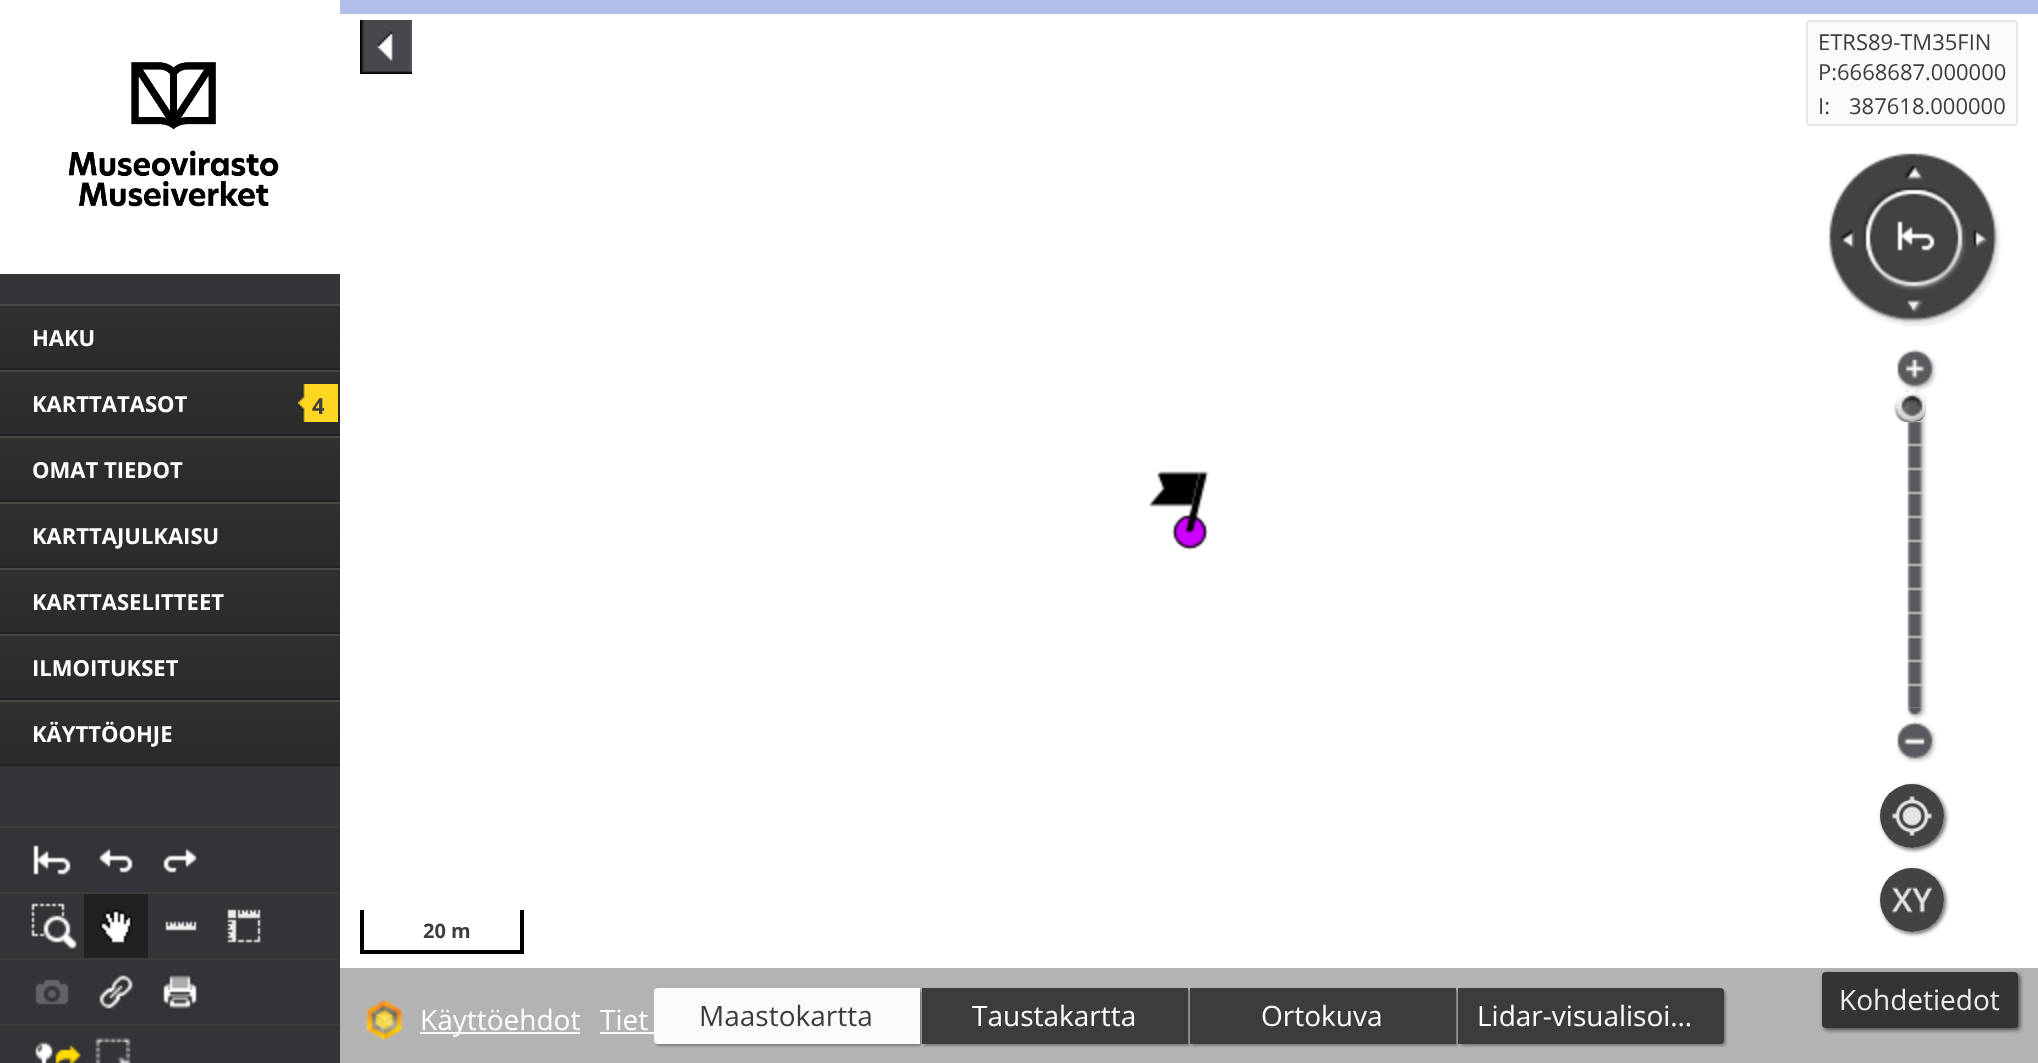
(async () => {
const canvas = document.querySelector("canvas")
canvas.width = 2038
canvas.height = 1063
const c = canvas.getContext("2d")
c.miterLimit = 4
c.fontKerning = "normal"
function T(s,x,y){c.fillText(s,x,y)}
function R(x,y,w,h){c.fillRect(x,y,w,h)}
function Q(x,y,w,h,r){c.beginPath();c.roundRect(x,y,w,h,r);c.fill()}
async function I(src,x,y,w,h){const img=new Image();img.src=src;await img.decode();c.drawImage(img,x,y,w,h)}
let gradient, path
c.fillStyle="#fff"
R(0,0,2038,1063)
c.fillStyle="#333438"
R(0,274,340,789)
await I("1.png",0,0,340,274)
gradient = c.createLinearGradient(170,306,170,368)
gradient.addColorStop(0,"#30302e")
gradient.addColorStop(1,"#2a2a2c")
c.fillStyle = gradient
R(0,306,340,62)
c.fillStyle="#484846"
R(0,304,340,2)
c.fillStyle="#212121"
R(0,368,340,2)
c.font="bold 22px Open Sans"
c.fillStyle="#fff"
T("HAKU",32,346)
gradient = c.createLinearGradient(170,372,170,434)
gradient.addColorStop(0,"#30302e")
gradient.addColorStop(1,"#2a2a2c")
c.fillStyle = gradient
R(0,372,340,62)
c.fillStyle="#484846"
R(0,370,340,2)
c.fillStyle="#212121"
R(0,434,340,2)
c.fillStyle="#fff"
T("KARTTATASOT",32,412)
await I("2.png",298,384,40,38)
c.fillStyle="#3c3c3c"
T("4",312,414)
gradient = c.createLinearGradient(170,438,170,500)
gradient.addColorStop(0,"#30302e")
gradient.addColorStop(1,"#2a2a2c")
c.fillStyle = gradient
R(0,438,340,62)
c.fillStyle="#484846"
R(0,436,340,2)
c.fillStyle="#212121"
R(0,500,340,2)
c.fillStyle="#fff"
T("OMAT TIEDOT",32,478)
gradient = c.createLinearGradient(170,504,170,566)
gradient.addColorStop(0,"#30302e")
gradient.addColorStop(1,"#2a2a2c")
c.fillStyle = gradient
R(0,504,340,62)
c.fillStyle="#484846"
R(0,502,340,2)
c.fillStyle="#212121"
R(0,566,340,2)
c.fillStyle="#fff"
T("KARTTAJULKAISU",32,544)
gradient = c.createLinearGradient(170,570,170,632)
gradient.addColorStop(0,"#30302e")
gradient.addColorStop(1,"#2a2a2c")
c.fillStyle = gradient
R(0,570,340,62)
c.fillStyle="#484846"
R(0,568,340,2)
c.fillStyle="#212121"
R(0,632,340,2)
c.fillStyle="#fff"
T("KARTTASELITTEET",32,610)
gradient = c.createLinearGradient(170,636,170,698)
gradient.addColorStop(0,"#30302e")
gradient.addColorStop(1,"#2a2a2c")
c.fillStyle = gradient
R(0,636,340,62)
c.fillStyle="#484846"
R(0,634,340,2)
c.fillStyle="#212121"
R(0,698,340,2)
c.fillStyle="#fff"
T("ILMOITUKSET",32,676)
gradient = c.createLinearGradient(170,702,170,764)
gradient.addColorStop(0,"#30302e")
gradient.addColorStop(1,"#2a2a2c")
c.fillStyle = gradient
R(0,702,340,62)
c.fillStyle="#484846"
R(0,700,340,2)
c.fillStyle="#212121"
R(0,764,340,2)
c.fillStyle="#fff"
T("KÄYTTÖOHJE",32,742)
c.fillStyle="#3c3c3c"
R(0,826,340,2)
await I("3.png",33,845,38,30)
await I("4.png",99,848,34,25)
await I("5.png",163,848,34,25)
R(0,892,340,2)
await I("6.png",31,903,46,46)
c.fillStyle="#212121"
R(84,894,64,64)
await I("7.png",99,909,34,34)
await I("8.png",165,921,32,10)
await I("9.png",227,909,34,34)
c.fillStyle="#3c3c3c"
R(0,958,340,2)
await I("10.png",35,979,34,26)
await I("11.png",99,975,34,34)
await I("12.png",163,975,34,34)
R(0,1024,340,2)
await I("13.png",35,1041,46,22)
await I("14.png",95,1037,36,26)
c.fillStyle="#b3bfeb"
R(340,0,1698,14)
await I("15.png",360,20,52,54)
await I("17.png",1171,513,38,38)
await I("16.png",1149,471,60,62)
c.fillStyle="#fafafa"
c.beginPath()
c.roundRect(1807,21,210,104,3)
c.fill()
c.strokeStyle="#e6e6e6"
c.lineWidth=2
c.stroke()
c.font="22px Open Sans"
c.fillStyle="#3c3c3c"
T("ETRS89-TM35FIN",1818,50)
T("P:",1818,80)
T("6668687.000000",1837,80)
T("I:",1818,114)
T("387618.000000",1849,114)
await I("18.png",1827,153,174,173)
await I("19.png",1897,349,40,73)
await I("20.png",1907,422,20,286)
await I("21.png",1894,389,32,33)
await I("22.png",1897,708,40,55)
c.save()
path = new Path2D("M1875 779h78v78h-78zm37 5c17.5 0 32 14.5 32 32c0 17.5-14.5 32-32 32c-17.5 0-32-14.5-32-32c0-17.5 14.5-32 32-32z")
c.clip(path,"evenodd")
c.fillStyle="#00000099"
c.filter="blur(2px)"
c.beginPath()
c.roundRect(1882,786,64,64,32)
c.fill()
c.filter="none"
c.restore()
c.fillStyle="#141414cc"
c.beginPath()
c.arc(1912,816,32,0,7)
c.fill()
await I("23.png",1892,796,40,40)
c.save()
path = new Path2D("M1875 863h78v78h-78zm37 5c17.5 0 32 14.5 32 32c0 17.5-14.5 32-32 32c-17.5 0-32-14.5-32-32c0-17.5 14.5-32 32-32z")
c.clip(path,"evenodd")
c.fillStyle="#00000099"
c.filter="blur(2px)"
c.beginPath()
c.roundRect(1882,870,64,64,32)
c.fill()
c.filter="none"
c.restore()
c.beginPath()
c.arc(1912,900,32,0,7)
c.fill()
await I("24.png",1892,887,40,26)
c.fillStyle="#b3b3b3"
R(340,968,1698,95)
c.save()
path = new Path2D("M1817 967h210v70h-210zm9 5h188c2 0 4 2 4 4v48c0 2-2 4-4 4h-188c-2 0-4-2-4-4v-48c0-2 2-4 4-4z")
c.clip(path,"evenodd")
c.fillStyle="#00000099"
c.filter="blur(2px)"
c.beginPath()
c.roundRect(1824,974,196,56,4)
c.fill()
c.filter="none"
c.restore()
c.fillStyle="#141414cc"
Q(1822,972,196,56,4)
c.font="28px Open Sans"
c.fillStyle="#ebebeb"
T("Kohdetiedot",1839,1010)
c.fillStyle="#000"
R(522,910,2,44)
R(360,952,164,2)
R(360,910,2,44)
R(520,910,2,42)
R(362,950,160,2)
R(362,910,2,42)
c.font="bold 20px Open Sans"
c.fillStyle="#3c3c3c"
T("20 m",423,938)
await I("25.png",365,999,38,42)
c.fillStyle="#fafafa"
R(420,1032,160,2)
c.font="28px Open Sans"
c.fillStyle="#fff"
T("Käyttöehdot",420,1030)
T("Tiet",600,1030)
c.fillStyle="#0000004d"
c.filter="blur(1px)"
c.beginPath()
c.roundRect(656,990,266,56,4)
c.fill()
c.filter="none"
c.fillStyle="#fafafa"
R(600,1032,54,2)
c.beginPath()
c.roundRect(654,988,266,56,[4,0,0,4])
c.fill()
c.fillStyle="#3c3c3c"
T("Maastokartta",699,1026)
c.fillStyle="#0000004d"
c.filter="blur(1px)"
c.beginPath()
c.rect(924,990,266,56)
c.fill()
c.filter="none"
c.fillStyle="#3c3c3c"
R(922,988,266,56)
c.fillStyle="#fff"
T("Taustakartta",972,1026)
c.fillStyle="#0000004d"
c.filter="blur(1px)"
c.beginPath()
c.rect(1192,990,266,56)
c.fill()
c.filter="none"
c.fillStyle="#3c3c3c"
R(1190,988,266,56)
c.fillStyle="#fff"
T("Ortokuva",1261,1026)
c.fillStyle="#0000004d"
c.filter="blur(1px)"
c.beginPath()
c.roundRect(1460,990,266,56,4)
c.fill()
c.filter="none"
c.fillStyle="#3c3c3c"
c.beginPath()
c.roundRect(1458,988,266,56,[0,4,4,0])
c.fill()
c.fillStyle="#fff"
T("Lidar-visualisoi…",1477,1026)
})()
